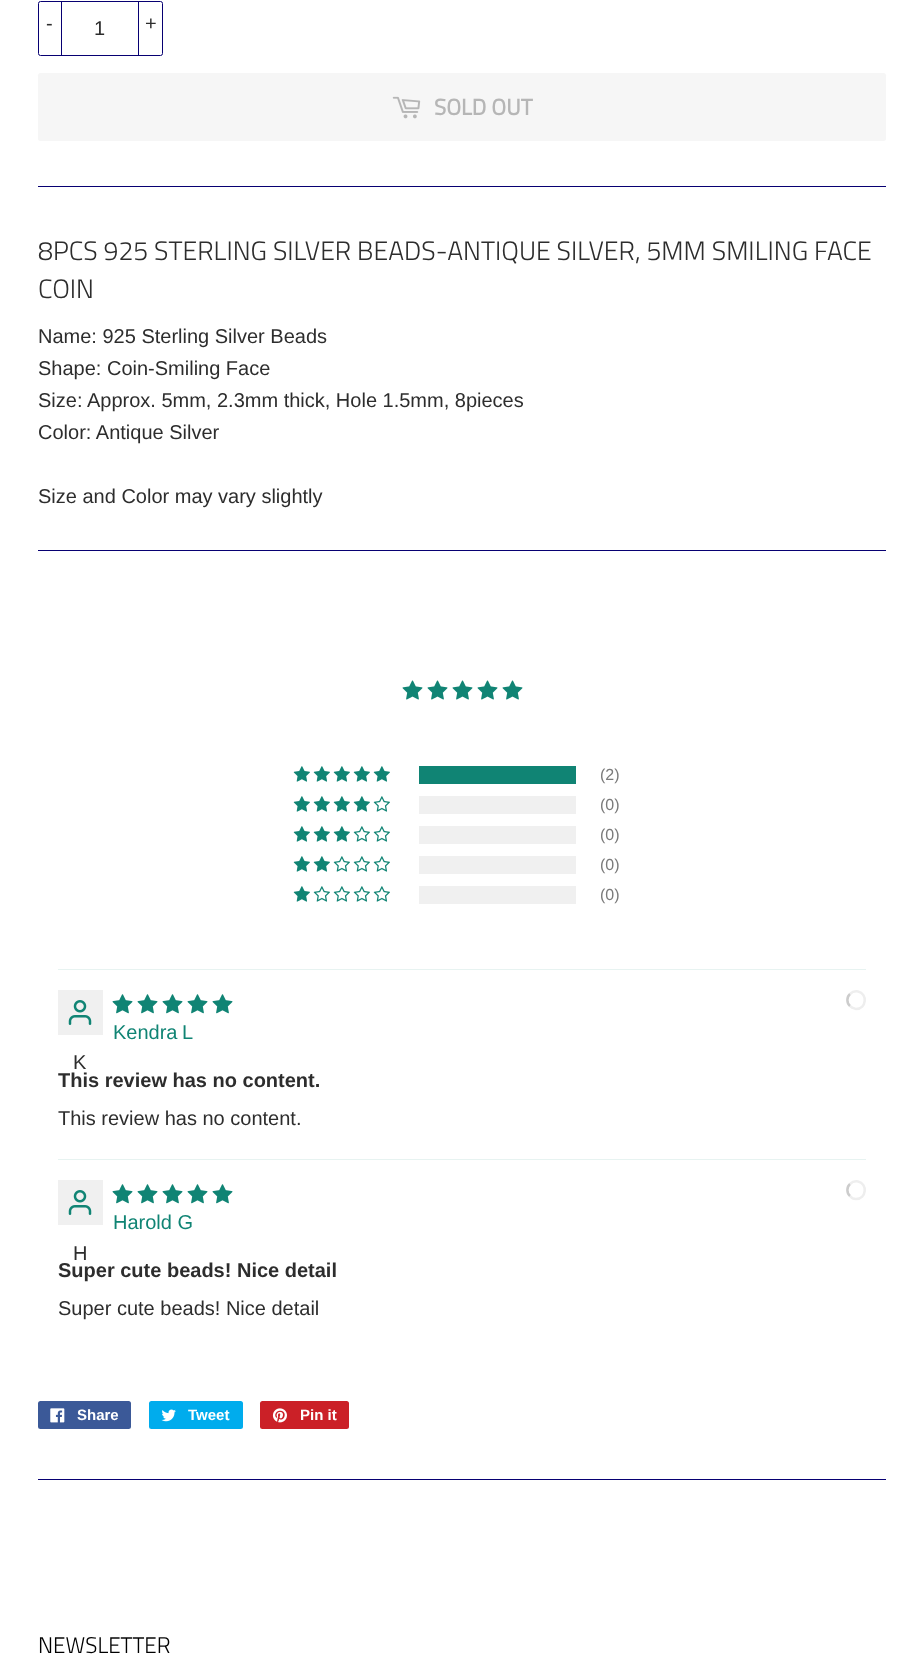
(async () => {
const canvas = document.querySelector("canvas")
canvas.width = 923
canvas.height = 1664
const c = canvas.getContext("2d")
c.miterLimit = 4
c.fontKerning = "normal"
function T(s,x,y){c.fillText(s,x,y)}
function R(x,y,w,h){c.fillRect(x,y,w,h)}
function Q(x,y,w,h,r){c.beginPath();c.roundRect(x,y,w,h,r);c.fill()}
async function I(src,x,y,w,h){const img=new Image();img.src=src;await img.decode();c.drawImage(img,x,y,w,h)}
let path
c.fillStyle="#fff"
R(0,0,923,1664)
c.beginPath()
c.roundRect(38.5,1.5,124,54,2)
c.strokeStyle="#070072"
c.stroke()
c.fillStyle="#070072"
R(61,1,1,55)
c.font="20px Arimo"
c.fillStyle="#2d2d2d"
T("-",46,30)
T("1",94,35)
c.fillStyle="#070072"
R(138,1,1,55)
c.fillStyle="#2d2d2d"
T("+",145,30)
c.fillStyle="#f6f6f6"
Q(38,73,848,68,2.5)
await I("1.png",392,96,29,23)
c.font="bold 22.5px Titillium Web"
c.fillStyle="#b6b6b6"
T("SOLD OUT",434,115)
c.fillStyle="#070072"
R(38,186,848,1)
c.font="300 26.65px Titillium Web"
c.fillStyle="#2d2d2d"
T("8PCS 925 STERLING SILVER BEADS-ANTIQUE SILVER, 5MM SMILING FACE",38,260)
T("COIN",38,298)
c.font="20px Arimo"
T("Name: 925 Sterling Silver Beads",38,343)
T("Shape: Coin-Smiling Face",38,375)
T("Size: Approx. 5mm, 2.3mm thick, Hole 1.5mm, 8pieces",38,407)
T("Color: Antique Silver",38,439)
T("Size and Color may vary slightly",38,503)
c.fillStyle="#070072"
R(38,550,848,1)
await I("2.png",402,680,21,20)
await I("2.png",427,680,21,20)
await I("2.png",452,680,21,20)
await I("2.png",477,680,21,20)
await I("2.png",502,680,21,20)
await I("3.png",293,766,17,16)
await I("3.png",313,766,17,16)
await I("3.png",333,766,17,16)
await I("3.png",353,766,17,16)
await I("3.png",373,766,17,16)
c.fillStyle="#108474"
R(419,766,157,18)
c.font="16px Arimo"
c.fillStyle="#7b7b7b"
T("(2)",600,780)
await I("3.png",293,796,17,16)
await I("3.png",313,796,17,16)
await I("3.png",333,796,17,16)
await I("3.png",353,796,17,16)
await I("4.png",373,796,17,16)
c.fillStyle="#f0f0f0"
R(419,796,157,18)
c.fillStyle="#7b7b7b"
T("(0)",600,810)
await I("3.png",293,826,17,16)
await I("3.png",313,826,17,16)
await I("3.png",333,826,17,16)
await I("4.png",353,826,17,16)
await I("4.png",373,826,17,16)
c.fillStyle="#f0f0f0"
R(419,826,157,18)
c.fillStyle="#7b7b7b"
T("(0)",600,840)
await I("3.png",293,856,17,16)
await I("3.png",313,856,17,16)
await I("4.png",333,856,17,16)
await I("4.png",353,856,17,16)
await I("4.png",373,856,17,16)
c.fillStyle="#f0f0f0"
R(419,856,157,18)
c.fillStyle="#7b7b7b"
T("(0)",600,870)
await I("3.png",293,886,17,16)
await I("4.png",313,886,17,16)
await I("4.png",333,886,17,16)
await I("4.png",353,886,17,16)
await I("4.png",373,886,17,16)
c.fillStyle="#f0f0f0"
R(419,886,157,18)
c.fillStyle="#7b7b7b"
T("(0)",600,900)
c.fillStyle="#e7f3f1"
R(58,969,808,1)
await I("5.png",112,994,21,20)
await I("5.png",137,994,21,20)
await I("5.png",162,994,21,20)
await I("5.png",187,994,21,20)
await I("5.png",212,994,21,20)
path = new Path2D("M850 994c2-2 5-3 8-2.5c10 2 8.5 17.5-2 17.5c-2-.5-4.5-1-6-3")
c.strokeStyle="#eee"
c.lineWidth=2.5
c.stroke(path)
path = new Path2D("M850 1006c-3.5-3-3.5-9 0-12")
c.strokeStyle="#ccc"
c.stroke(path)
c.wordSpacing="-1px"
c.font="20px Arimo"
c.fillStyle="#108474"
T("Kendra L",113,1039)
c.fillStyle="#f0f0f0"
R(58,990,45,45)
await I("6.png",68,1000,24,25)
c.wordSpacing="0px"
c.fillStyle="#2d2d2d"
T("K",73,1069)
c.font="bold 20px Arimo"
T("This review has no content.",58,1087)
c.font="20px Arimo"
T("This review has no content.",58,1125)
c.fillStyle="#e7f3f1"
R(58,1159,808,1)
await I("5.png",112,1184,21,20)
await I("5.png",137,1184,21,20)
await I("5.png",162,1184,21,20)
await I("5.png",187,1184,21,20)
await I("5.png",212,1184,21,20)
path = new Path2D("M850 1184c2-2 5-3 8-2.5c10 2 8.5 17.5-2 17.5c-2 0-4.5-1-6-3")
c.strokeStyle="#eee"
c.stroke(path)
path = new Path2D("M850 1196c-3.5-3-3.5-9 0-12")
c.strokeStyle="#ccc"
c.stroke(path)
c.fillStyle="#108474"
T("Harold G",113,1229)
c.fillStyle="#f0f0f0"
R(58,1180,45,45)
await I("6.png",68,1190,24,25)
c.fillStyle="#2d2d2d"
T("H",73,1260)
c.font="bold 20px Arimo"
T("Super cute beads! Nice detail",58,1277)
c.font="20px Arimo"
T("Super cute beads! Nice detail",58,1315)
c.fillStyle="#3b5998"
Q(38,1401,93,28,2.5)
await I("7.png",50,1408,15,15)
c.font="bold 15px Liberation Sans"
c.fillStyle="#fff"
T("Share",77,1420)
c.fillStyle="#00aced"
Q(149,1401,94,28,2.5)
await I("8.png",161,1409,15,13)
c.fillStyle="#fff"
T("Tweet",188,1420)
c.fillStyle="#cb2027"
Q(260,1401,89,28,2.5)
await I("9.png",272,1408,15,15)
c.fillStyle="#fff"
T("Pin it",300,1420)
c.fillStyle="#070072"
R(38,1479,848,1)
c.font="300 22.5px Titillium Web"
c.fillStyle="#000"
T("NEWSLETTER",38,1653)
})()
